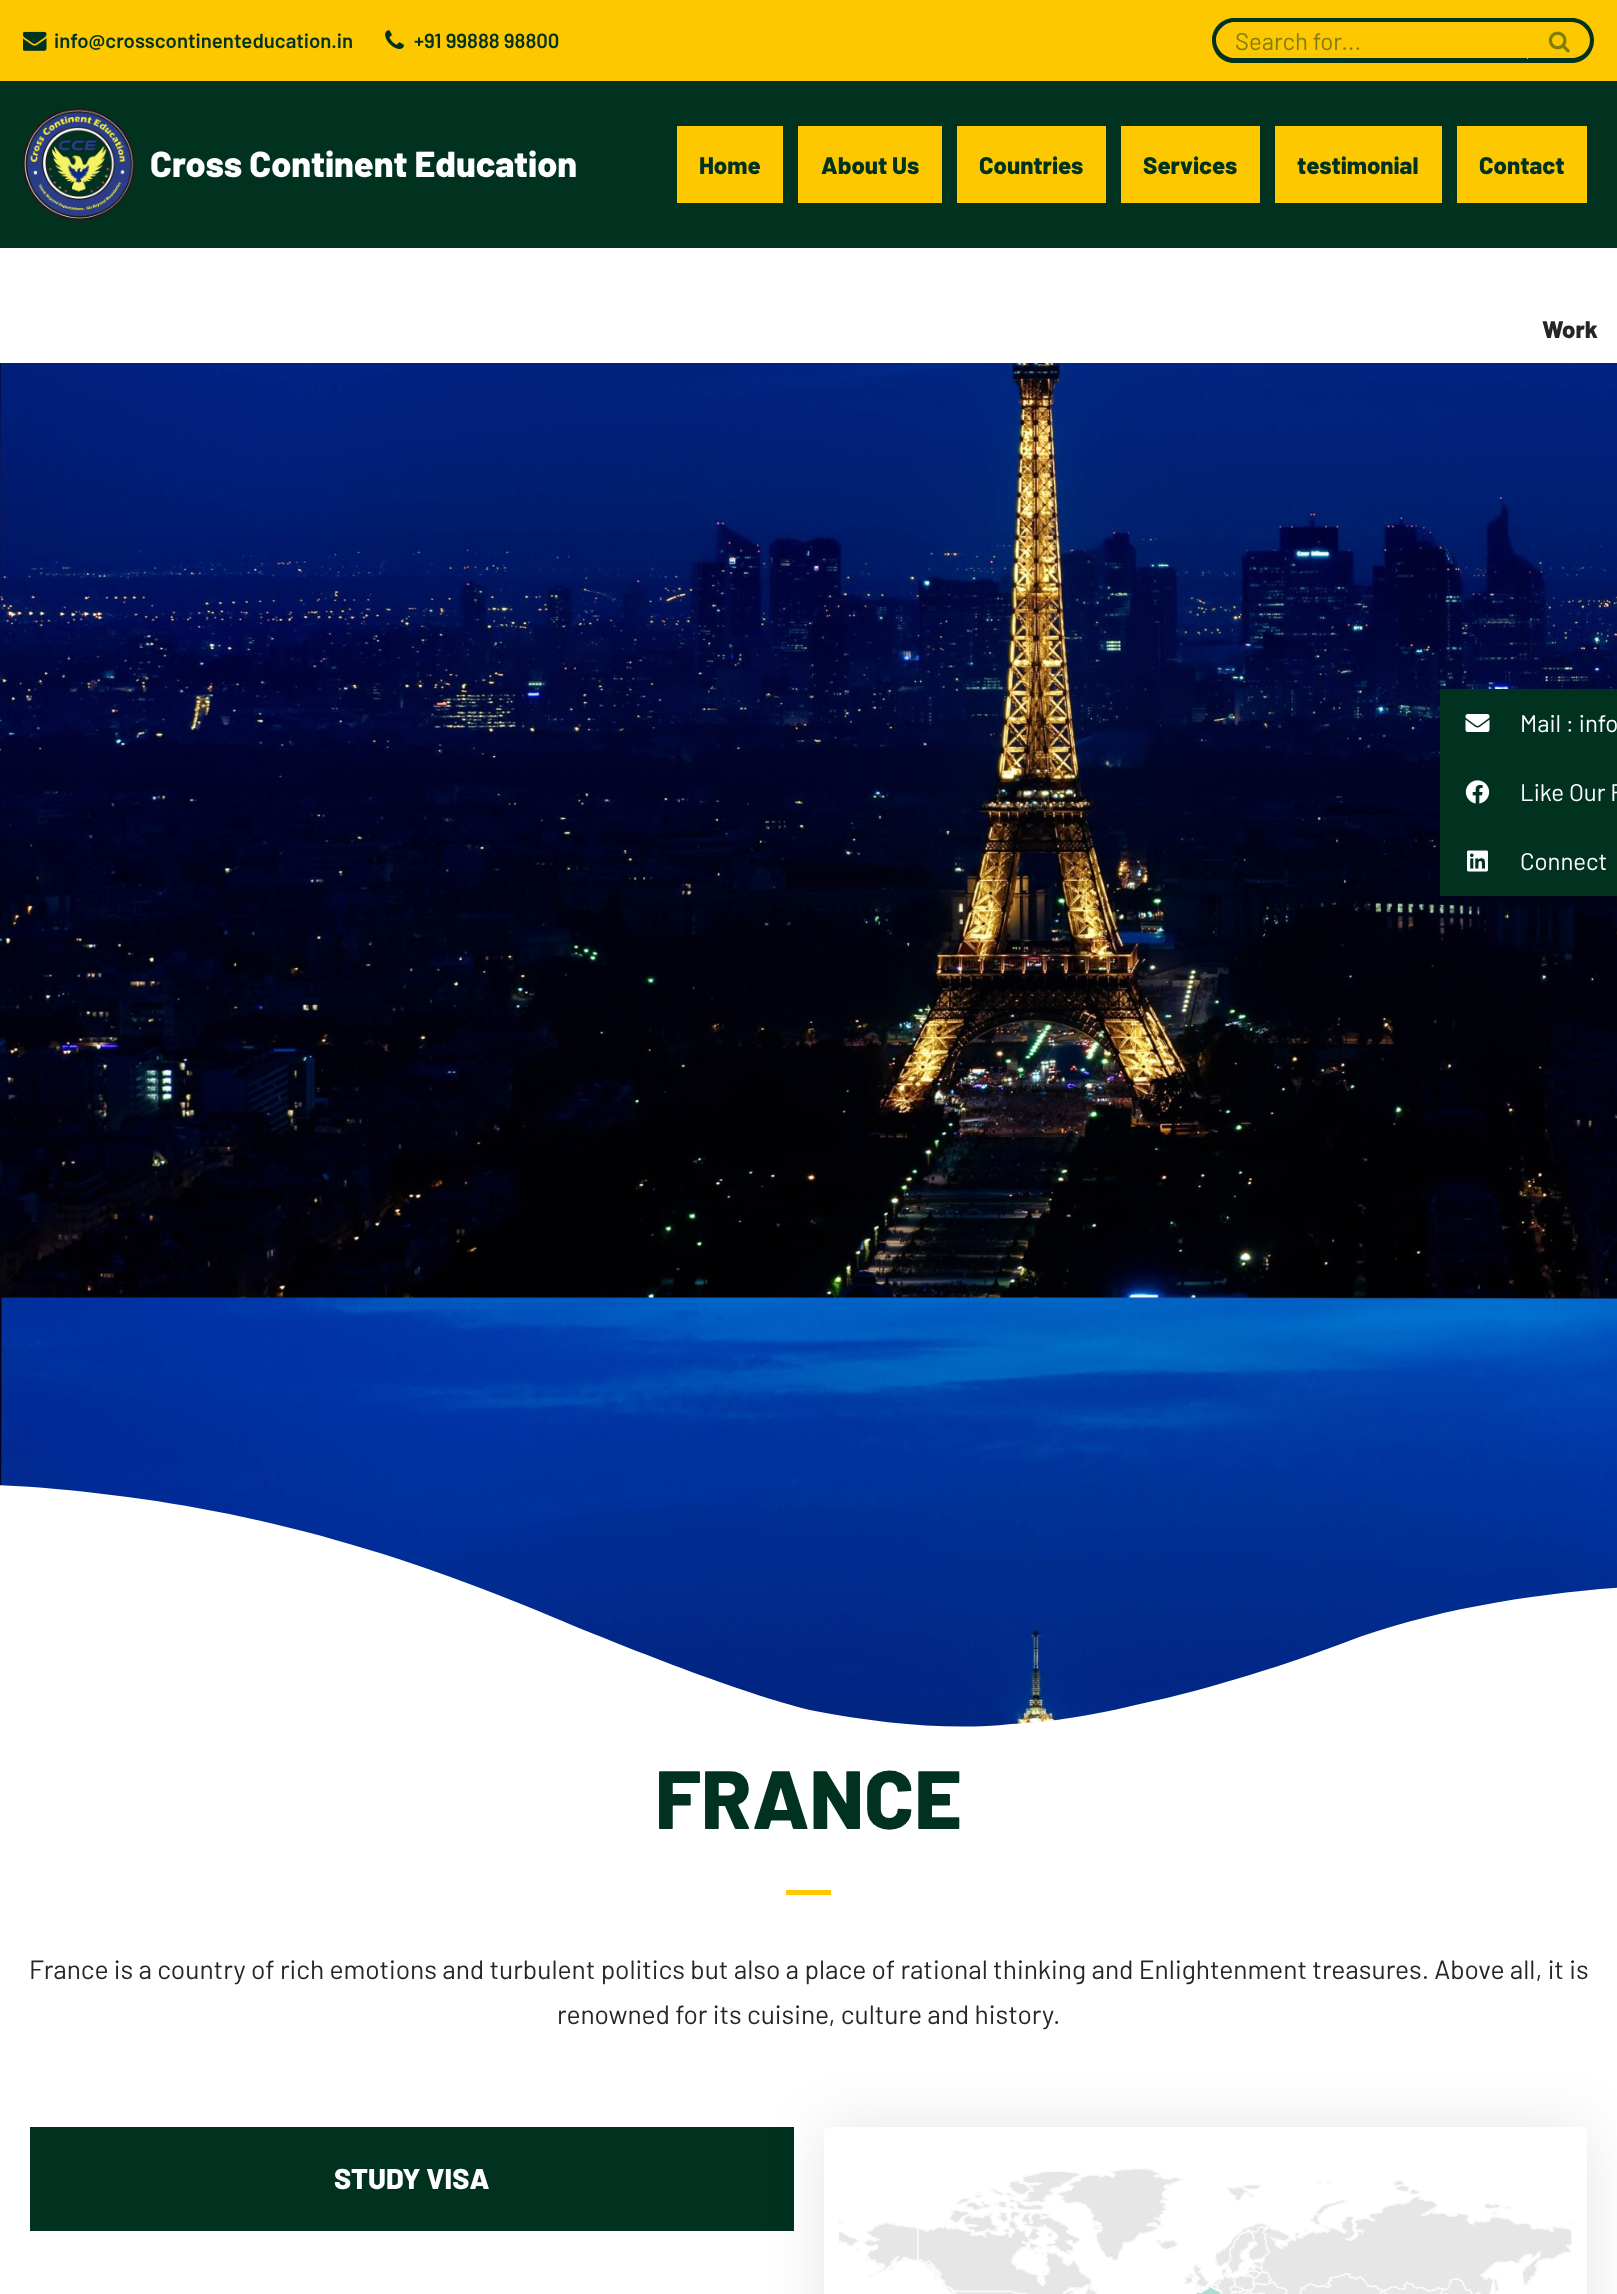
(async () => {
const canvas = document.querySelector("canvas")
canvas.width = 1617
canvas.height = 2294
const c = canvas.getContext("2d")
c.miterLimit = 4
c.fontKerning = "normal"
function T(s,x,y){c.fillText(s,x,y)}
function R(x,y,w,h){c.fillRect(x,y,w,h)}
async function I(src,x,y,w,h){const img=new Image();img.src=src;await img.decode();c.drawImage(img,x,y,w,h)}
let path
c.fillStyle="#fff"
R(0,0,1617,2294)
c.fillStyle="#fdc800"
R(0,0,1617,81)
await I("1.png",23,31,24,20)
c.font="600 20.4px Barlow"
c.fillStyle="#013220"
T("info@crosscontinenteducation.in",54,48)
await I("2.png",385,30,19,20)
T("+91 99888 98800",414,48)
path = new Path2D("M1234 18h293v45h-293c-12 0-22-10-22-23c0-12 10-22 22-22zm0 4h293v36h-293c-9 0-18-8-18-18c0-9 9-18 18-18z")
c.fill(path,"evenodd")
c.font="24px Barlow"
c.fillStyle="#7f7d10"
T("Search for...",1235,50)
c.fillStyle="#013220"
path = new Path2D("M1527 18h45c12 0 22 10 22 22c0 13-10 23-22 23h-45zm0 4h45c10 0 18 9 18 18c0 10-8 18-18 18h-45z")
c.fill(path,"evenodd")
await I("3.png",1548,31,22,22)
c.fillStyle="#fdc800"
R(1527,58,1,1)
c.fillStyle="#013220"
R(0,81,1617,167)
await I("4.png",22,108,113,113)
c.font="800 36px Barlow"
c.fillStyle="#fff"
T("Cross Continent Education",150,177)
c.fillStyle="#fdc800"
R(677,126,106,77)
c.font="800 24px Barlow"
c.fillStyle="#013220"
T("Home",699,174)
c.fillStyle="#fdc800"
R(798,126,144,77)
c.fillStyle="#013220"
T("About Us",821,174)
c.fillStyle="#fdc800"
R(957,126,149,77)
c.fillStyle="#013220"
T("Countries",979,174)
c.fillStyle="#fdc800"
R(1121,126,139,77)
c.fillStyle="#013220"
T("Services",1143,174)
c.fillStyle="#fdc800"
R(1275,126,167,77)
c.fillStyle="#013220"
T("testimonial",1297,174)
c.fillStyle="#fdc800"
R(1457,126,130,77)
c.fillStyle="#013220"
T("Contact",1479,174)
c.fillStyle="#272626"
T("Work",1542,338)
await I("5.png",0,363,1617,1364)
c.fillStyle="#fff"
path = new Path2D("M1011 1724c-59 7-134-1-196-13c-61-13-183-61-260-93c-196-83-346-115-499-129c-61-5-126-9-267 7c-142 15-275 66-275 66v179h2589v-78c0 0-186-85-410-79c-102 2-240 17-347 58c-55 21-135 47-206 62c-71 17-103 18-129 20z")
c.fill(path)
c.font="800 82.5px Barlow"
c.fillStyle="#013220"
T("FRANCE",655,1829)
c.fillStyle="#fdc800"
R(786,1890,45,5)
c.font="26.4px Barlow"
c.fillStyle="#272626"
T("France is a country of rich emotions and turbulent politics but also a place of rational thinking and Enlightenment treasures. Above all, it is",29,1979)
T("renowned for its cuisine, culture and history.",557,2024)
c.fillStyle="#013220"
R(30,2127,764,104)
c.font="800 28.75px Barlow"
c.fillStyle="#fff"
T("STUDY VISA",334,2189)
c.save()
path = new Path2D("M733 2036h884v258h-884zm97 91h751c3.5 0 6 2.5 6 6v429c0 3.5-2.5 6-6 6h-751c-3.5 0-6-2.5-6-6v-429c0-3.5 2.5-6 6-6z")
c.clip(path,"evenodd")
c.fillStyle="#0000001a"
c.filter="blur(30px)"
c.beginPath()
c.roundRect(824,2127,763,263,6)
c.fill()
c.filter="none"
c.restore()
await I("6.png",839,2168,733,126)
c.fillStyle="#013220"
R(1440,689,177,207)
await I("7.png",1465,714,25,18)
c.font="24px Barlow"
c.fillStyle="#fff"
T("Mail : info",1520,732)
await I("8.png",1465,780,25,24)
T("Like Our F",1520,801)
await I("9.png",1467,850,21,22)
T("Connect",1520,870)
})()
